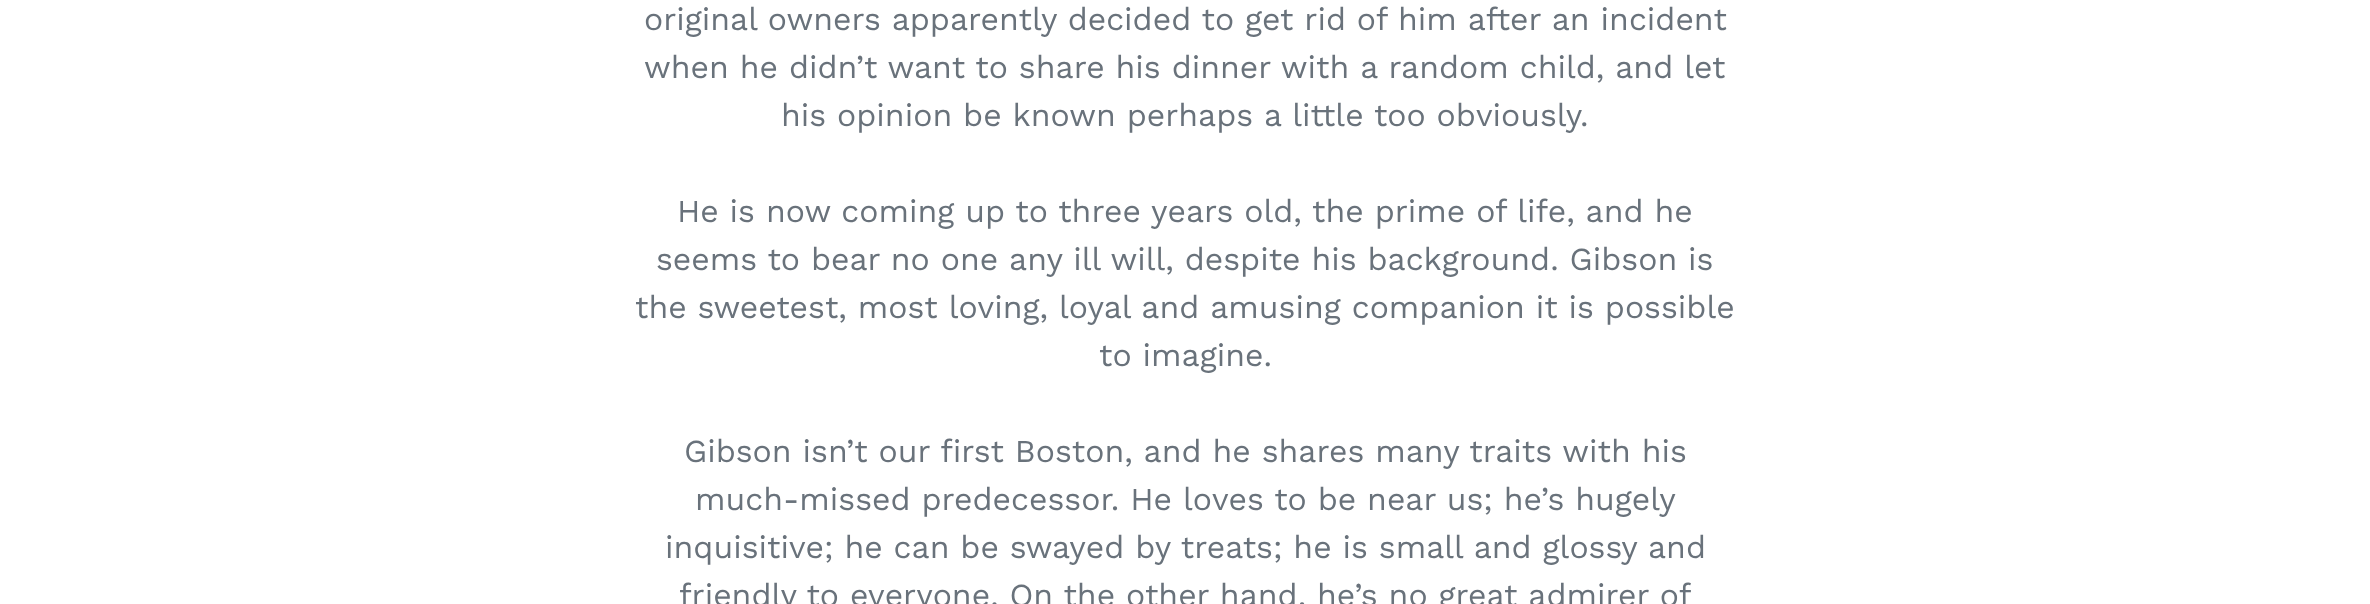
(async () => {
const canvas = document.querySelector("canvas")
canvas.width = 2370
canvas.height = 604
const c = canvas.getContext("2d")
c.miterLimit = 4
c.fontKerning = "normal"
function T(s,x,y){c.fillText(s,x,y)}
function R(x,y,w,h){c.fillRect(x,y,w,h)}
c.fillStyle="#fff"
R(0,0,2370,604)
c.font="32px Work Sans"
c.fillStyle="#69727b"
T("original owners apparently decided to get rid of him after an incident",644,30)
T("when he didn’t want to share his dinner with a random child, and let",644,78)
T("his opinion be known perhaps a little too obviously.",781,126)
T("He is now coming up to three years old, the prime of life, and he",677,222)
T("seems to bear no one any ill will, despite his background. Gibson is",656,270)
T("the sweetest, most loving, loyal and amusing companion it is possible",635,318)
T("to imagine.",1099,366)
T("Gibson isn’t our first Boston, and he shares many traits with his",684,462)
T("much-missed predecessor. He loves to be near us; he’s hugely",695,510)
T("inquisitive; he can be swayed by treats; he is small and glossy and",665,558)
T("friendly to everyone. On the other hand, he’s no great admirer of",679,606)
})()
